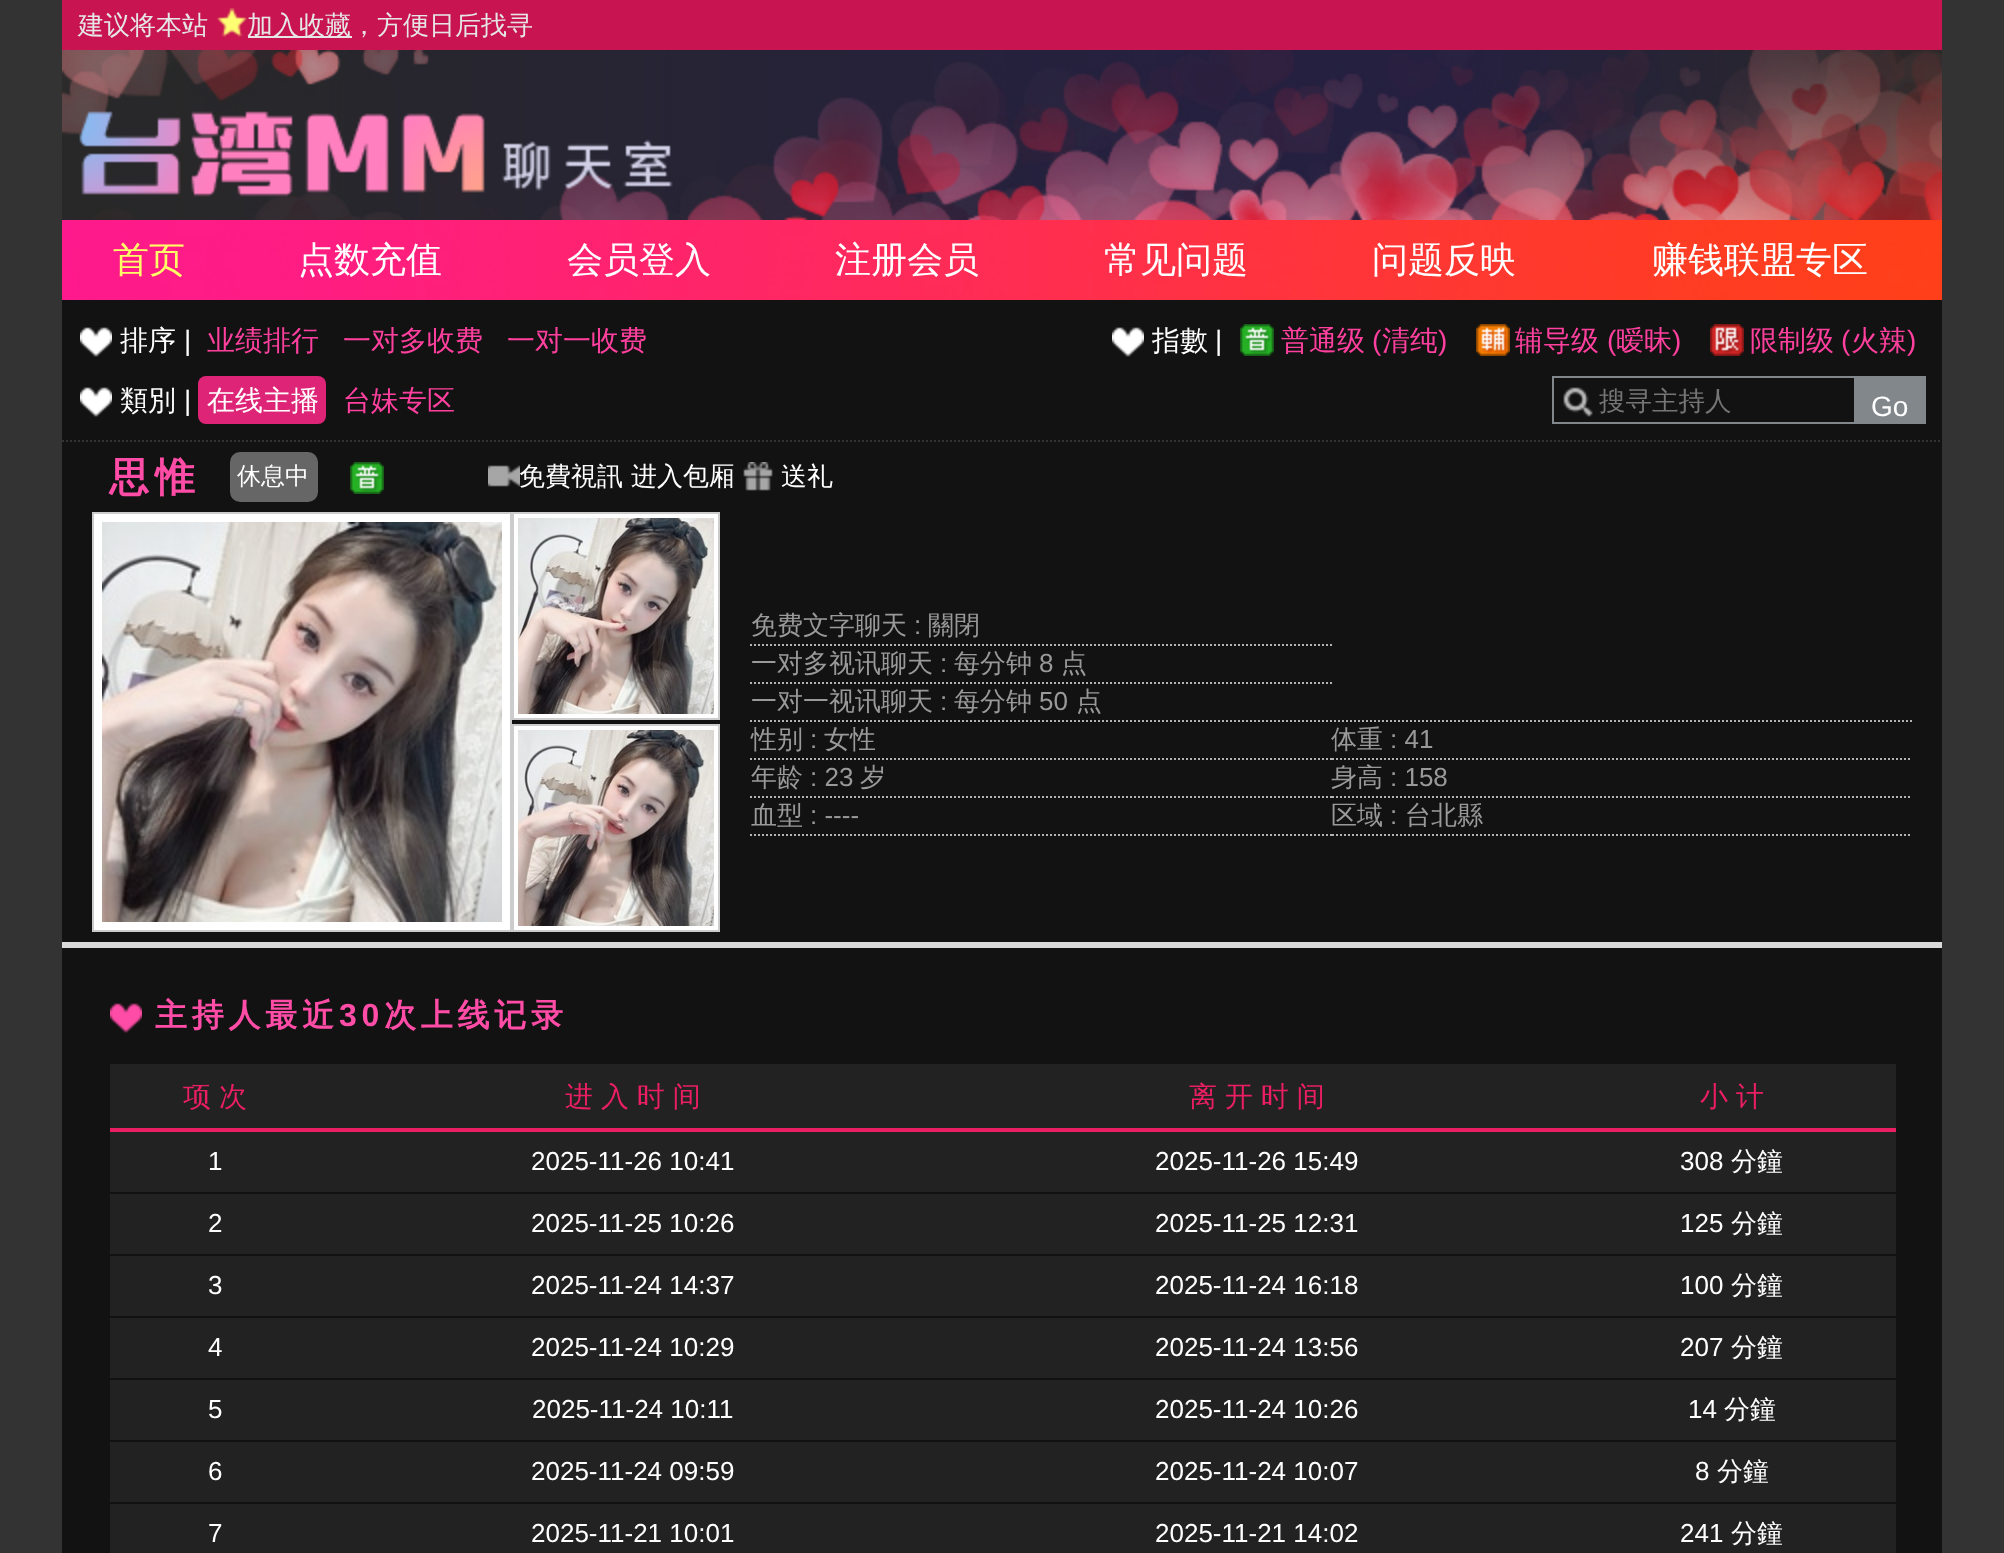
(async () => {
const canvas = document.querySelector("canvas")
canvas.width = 2004
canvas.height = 1553
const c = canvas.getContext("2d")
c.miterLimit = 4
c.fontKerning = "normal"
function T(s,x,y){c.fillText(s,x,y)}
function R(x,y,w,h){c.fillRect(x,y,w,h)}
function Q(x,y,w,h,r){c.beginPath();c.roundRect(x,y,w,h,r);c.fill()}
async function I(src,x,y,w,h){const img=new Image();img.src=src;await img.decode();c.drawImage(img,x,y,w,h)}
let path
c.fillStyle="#333"
R(0,0,2004,1553)
c.fillStyle="#c81450"
R(62,0,1880,50)
c.font="500 26px WenQuanYi Zen Hei"
c.fillStyle="#e6e6e6"
T("建议将本站",78,34)
await I("1.png",217,8,30,29)
R(248,36,104,2)
T("加入收藏，方便日后找寻",247,34)
await I("2.png",62,50,1880,170)
await I("3.png",79,111,594,86)
await I("4.png",62,220,1880,80)
c.font="500 36px WenQuanYi Zen Hei"
c.fillStyle="#ff6"
T("首页",113,272)
c.fillStyle="#fff"
T("点数充值",298,272)
T("会员登入",567,272)
T("注册会员",835,272)
T("常见问题",1104,272)
T("问题反映",1372,272)
T("赚钱联盟专区",1652,272)
c.fillStyle="#121212"
R(62,300,1880,1253)
path = new Path2D("M62 441h1880")
c.strokeStyle="#333"
c.lineWidth=2
c.setLineDash([2,2])
c.stroke(path)
await I("5.png",80,327,32,30)
c.font="500 28px WenQuanYi Zen Hei"
c.fillStyle="#fff"
T("排序",120,350)
c.font="28px Liberation Sans"
T("|",184,350)
c.font="500 28px WenQuanYi Zen Hei"
c.fillStyle="#ff409e"
T("业绩排行",207,350)
T("一对多收费",343,350)
T("一对一收费",507,350)
await I("5.png",1112,327,32,30)
c.fillStyle="#fff"
T("指數",1152,350)
c.font="28px Liberation Sans"
T("|",1215,350)
await I("6.png",1240,324,34,32)
c.font="500 28px WenQuanYi Zen Hei"
c.fillStyle="#ff409e"
T("普通级",1281,350)
c.font="28px Liberation Sans"
T("(",1372,350)
c.font="500 28px WenQuanYi Zen Hei"
T("清纯",1382,350)
c.font="28px Liberation Sans"
T(")",1438,350)
await I("7.png",1476,324,34,32)
c.font="500 28px WenQuanYi Zen Hei"
T("辅导级",1515,350)
c.font="28px Liberation Sans"
T("(",1607,350)
c.font="500 28px WenQuanYi Zen Hei"
T("暧昧",1616,350)
c.font="28px Liberation Sans"
T(")",1672,350)
await I("8.png",1710,324,34,32)
c.font="500 28px WenQuanYi Zen Hei"
T("限制级",1750,350)
c.font="28px Liberation Sans"
T("(",1841,350)
c.font="500 28px WenQuanYi Zen Hei"
T("火辣",1851,350)
c.font="28px Liberation Sans"
T(")",1907,350)
await I("5.png",80,387,32,30)
c.font="500 28px WenQuanYi Zen Hei"
c.fillStyle="#fff"
T("類別",120,410)
c.font="28px Liberation Sans"
T("|",184,410)
c.fillStyle="#dd2476"
Q(198,376,128,48,8)
c.font="500 28px WenQuanYi Zen Hei"
c.fillStyle="#fff"
T("在线主播",207,410)
c.fillStyle="#ff409e"
T("台妹专区",343,410)
c.strokeStyle="#82878c"
c.setLineDash([])
c.strokeRect(1553,377,372,46)
await I("9.png",1563,387,30,30)
c.font="500 26.5px WenQuanYi Zen Hei"
c.fillStyle="#757575"
T("搜寻主持人",1599,410)
c.fillStyle="#82878c"
R(1854,378,70,44)
c.font="28px Liberation Sans"
c.fillStyle="#fff"
T("Go",1871,416)
c.letterSpacing="6px"
c.font="bold 40px WenQuanYi Zen Hei"
c.fillStyle="#ff4ca6"
T("思惟",109,491)
c.fillStyle="#666"
c.beginPath()
c.roundRect(231,453,86,48,9)
c.fill()
c.strokeStyle="#666"
c.stroke()
c.letterSpacing="0px"
c.font="500 24px WenQuanYi Zen Hei"
c.fillStyle="#fff"
T("休息中",237,484)
await I("6.png",350,462,34,32)
await I("10.png",488,465,32,22)
c.font="500 26px WenQuanYi Zen Hei"
T("免費視訊",519,485)
T("进入包厢",631,485)
await I("11.png",743,462,30,29)
T("送礼",781,485)
c.beginPath()
c.rect(93,513,418,418)
c.fill()
c.strokeStyle="#ccc"
c.stroke()
await I("12.png",102,522,400,400)
c.beginPath()
c.rect(513,513,206,206)
c.fill()
c.stroke()
await I("13.png",518,518,196,196)
c.beginPath()
c.rect(513,725,206,206)
c.fill()
c.stroke()
await I("14.png",518,730,196,196)
path = new Path2D("M750 645h582")
c.strokeStyle="#b2b2b2"
c.setLineDash([2,2])
c.stroke(path)
c.fillStyle="#999"
T("免费文字聊天",751,634)
c.font="26px Liberation Sans"
T(":",914,634)
c.font="500 26px WenQuanYi Zen Hei"
T("關閉",928,634)
path = new Path2D("M750 683h582")
c.stroke(path)
T("一对多视讯聊天",751,672)
c.font="26px Liberation Sans"
T(":",940,672)
c.font="500 26px WenQuanYi Zen Hei"
T("每分钟",954,672)
c.font="26px Liberation Sans"
T("8",1039,672)
c.font="500 26px WenQuanYi Zen Hei"
T("点",1061,672)
path = new Path2D("M750 721h1162")
c.stroke(path)
T("一对一视讯聊天",751,710)
c.font="26px Liberation Sans"
T(":",940,710)
c.font="500 26px WenQuanYi Zen Hei"
T("每分钟",954,710)
c.font="26px Liberation Sans"
T("50",1039,710)
c.font="500 26px WenQuanYi Zen Hei"
T("点",1076,710)
path = new Path2D("M750 759h582")
c.stroke(path)
T("性别",751,748)
c.font="26px Liberation Sans"
T(":",810,748)
c.font="500 26px WenQuanYi Zen Hei"
T("女性",824,748)
path = new Path2D("M1332 759h580")
c.stroke(path)
T("体重",1331,748)
c.font="26px Liberation Sans"
T(": 41",1390,748)
path = new Path2D("M750 797h582")
c.stroke(path)
c.font="500 26px WenQuanYi Zen Hei"
T("年龄",751,786)
c.font="26px Liberation Sans"
T(": 23",810,786)
c.font="500 26px WenQuanYi Zen Hei"
T("岁",860,786)
path = new Path2D("M1332 797h580")
c.stroke(path)
T("身高",1331,786)
c.font="26px Liberation Sans"
T(": 158",1390,786)
path = new Path2D("M750 835h582")
c.stroke(path)
c.font="500 26px WenQuanYi Zen Hei"
T("血型",751,824)
c.font="26px Liberation Sans"
T(": ----",810,824)
path = new Path2D("M1332 835h580")
c.stroke(path)
c.font="500 26px WenQuanYi Zen Hei"
T("区域",1331,824)
c.font="26px Liberation Sans"
T(":",1390,824)
c.font="500 26px WenQuanYi Zen Hei"
T("台北縣",1405,824)
c.fillStyle="#d9d9d9"
R(62,942,1880,6)
await I("15.png",110,1003,32,30)
c.letterSpacing="4.75px"
c.font="bold 32px WenQuanYi Zen Hei"
c.fillStyle="#ff4ca6"
T("主持人最近",155,1026)
c.font="bold 32px Liberation Sans"
T("30",339,1026)
c.font="bold 32px WenQuanYi Zen Hei"
T("次上线记录",384,1026)
c.fillStyle="#222"
R(110,1064,1786,489)
c.fillStyle="#e91e63"
R(110,1128,1786,4)
c.letterSpacing="0px"
c.wordSpacing="-0.5px"
c.font="500 28px WenQuanYi Zen Hei"
T("项 次",183,1106)
T("进 入 时 间",565,1106)
T("离 开 时 间",1189,1106)
T("小 计",1700,1106)
c.fillStyle="#111"
R(110,1192,1786,2)
c.wordSpacing="0px"
c.font="26px Liberation Sans"
c.fillStyle="#fff"
T("1",208,1170)
T("2025-11-26 10:41",531,1170)
T("2025-11-26 15:49",1155,1170)
T("308",1680,1170)
c.font="500 26px WenQuanYi Zen Hei"
T("分鐘",1731,1170)
c.fillStyle="#111"
R(110,1254,1786,2)
c.font="26px Liberation Sans"
c.fillStyle="#fff"
T("2",208,1232)
T("2025-11-25 10:26",531,1232)
T("2025-11-25 12:31",1155,1232)
T("125",1680,1232)
c.font="500 26px WenQuanYi Zen Hei"
T("分鐘",1731,1232)
c.fillStyle="#111"
R(110,1316,1786,2)
c.font="26px Liberation Sans"
c.fillStyle="#fff"
T("3",208,1294)
T("2025-11-24 14:37",531,1294)
T("2025-11-24 16:18",1155,1294)
T("100",1680,1294)
c.font="500 26px WenQuanYi Zen Hei"
T("分鐘",1731,1294)
c.fillStyle="#111"
R(110,1378,1786,2)
c.font="26px Liberation Sans"
c.fillStyle="#fff"
T("4",208,1356)
T("2025-11-24 10:29",531,1356)
T("2025-11-24 13:56",1155,1356)
T("207",1680,1356)
c.font="500 26px WenQuanYi Zen Hei"
T("分鐘",1731,1356)
c.fillStyle="#111"
R(110,1440,1786,2)
c.font="26px Liberation Sans"
c.fillStyle="#fff"
T("5",208,1418)
T("2025-11-24 10:11",532,1418)
T("2025-11-24 10:26",1155,1418)
T("14",1688,1418)
c.font="500 26px WenQuanYi Zen Hei"
T("分鐘",1724,1418)
c.fillStyle="#111"
R(110,1502,1786,2)
c.font="26px Liberation Sans"
c.fillStyle="#fff"
T("6",208,1480)
T("2025-11-24 09:59",531,1480)
T("2025-11-24 10:07",1155,1480)
T("8",1695,1480)
c.font="500 26px WenQuanYi Zen Hei"
T("分鐘",1717,1480)
c.font="26px Liberation Sans"
T("7",208,1542)
T("2025-11-21 10:01",531,1542)
T("2025-11-21 14:02",1155,1542)
T("241",1680,1542)
c.font="500 26px WenQuanYi Zen Hei"
T("分鐘",1731,1542)
})()
